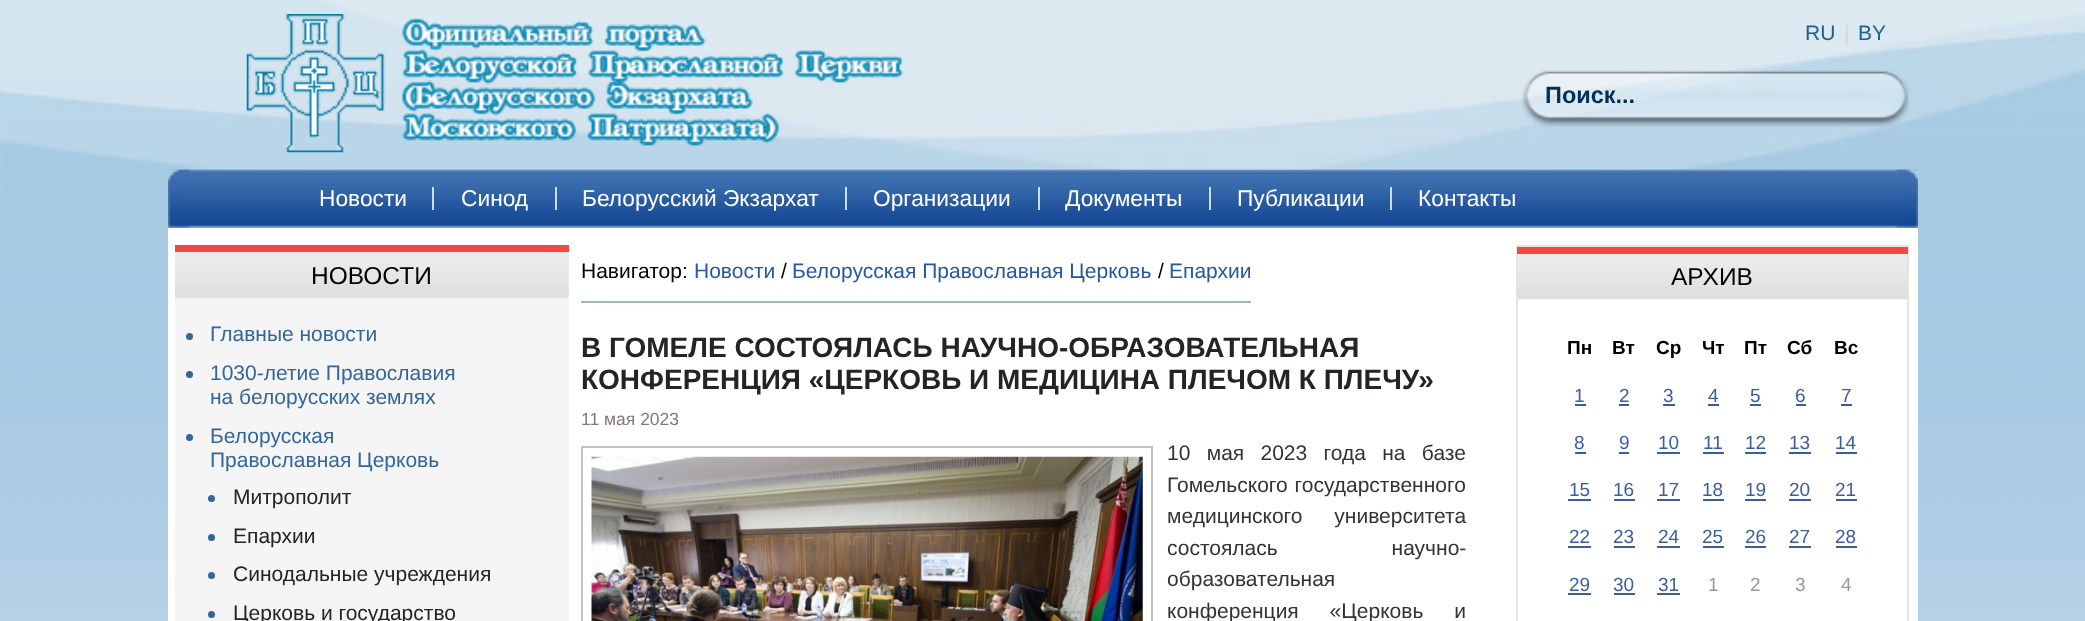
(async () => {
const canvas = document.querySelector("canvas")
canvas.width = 2085
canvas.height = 621
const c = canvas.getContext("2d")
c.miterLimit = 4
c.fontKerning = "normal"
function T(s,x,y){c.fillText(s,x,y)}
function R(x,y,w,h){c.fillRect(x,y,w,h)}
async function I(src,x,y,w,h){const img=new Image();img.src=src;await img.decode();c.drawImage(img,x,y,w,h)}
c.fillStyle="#fff"
R(0,0,2085,621)
await I("1.png",0,206,2085,415)
await I("2.png",0,0,2085,207)
await I("3.png",246,14,658,139)
c.font="21px Liberation Sans"
c.fillStyle="#21608c"
T("RU",1805,40)
c.fillStyle="#d5d5d5"
T("|",1844,40)
c.fillStyle="#21608c"
T("BY",1858,40)
await I("4.png",1522,70,387,57)
c.font="bold 23.5px Liberation Sans"
c.fillStyle="#032f57"
T("Поиск...",1545,103)
await I("5.png",168,169,1750,59)
await I("6.png",168,169,21,59)
c.fillStyle="#cfdeff"
R(432,187,2,23)
c.font="22.75px Liberation Sans"
c.fillStyle="#fff"
T("Новости",319,206)
c.fillStyle="#cfdeff"
R(555,187,2,23)
c.fillStyle="#fff"
T("Синод",461,206)
c.fillStyle="#cfdeff"
R(845,187,2,23)
c.fillStyle="#fff"
T("Белорусский Экзархат",582,206)
c.fillStyle="#cfdeff"
R(1038,187,2,23)
c.fillStyle="#fff"
T("Организации",873,206)
c.fillStyle="#cfdeff"
R(1209,187,2,23)
c.fillStyle="#fff"
T("Документы",1065,206)
c.fillStyle="#cfdeff"
R(1390,187,2,23)
c.fillStyle="#fff"
T("Публикации",1237,206)
T("Контакты",1418,206)
await I("7.png",1897,169,21,59)
R(168,228,1750,393)
c.fillStyle="#f5f5f5"
R(175,252,394,369)
c.fillStyle="#f44642"
R(175,245,394,7)
await I("8.png",175,252,394,46)
c.font="24.5px Liberation Sans"
c.fillStyle="#000"
T("НОВОСТИ",311,284)
c.fillStyle="#369"
c.beginPath()
c.arc(189.5,336.5,3.5,0,7)
c.fill()
c.font="21px Liberation Sans"
T("Главные новости",210,341)
c.beginPath()
c.arc(189.5,374.5,3.5,0,7)
c.fill()
T("1030-летие Православия",210,380)
T("на белорусских землях",210,404)
c.beginPath()
c.arc(189.5,437.5,3.5,0,7)
c.fill()
T("Белорусская",210,443)
T("Православная Церковь",210,467)
c.beginPath()
c.arc(211.5,498.5,3.5,0,7)
c.fill()
c.fillStyle="#232424"
T("Митрополит",233,504)
c.fillStyle="#369"
c.beginPath()
c.arc(211.5,537.5,3.5,0,7)
c.fill()
c.fillStyle="#232424"
T("Епархии",233,543)
c.fillStyle="#369"
c.beginPath()
c.arc(211.5,575.5,3.5,0,7)
c.fill()
c.fillStyle="#232424"
T("Синодальные учреждения",233,581)
c.fillStyle="#369"
c.beginPath()
c.arc(211.5,614.5,3.5,0,7)
c.fill()
c.fillStyle="#232424"
T("Церковь и государство",233,620)
c.fillStyle="#000"
T("Навигатор:",581,278)
c.fillStyle="#9bb7cb"
R(581,301,670,2)
c.fillStyle="#25589f"
T("Новости",694,278)
c.fillStyle="#000"
T("/",781,278)
c.fillStyle="#25589f"
T("Белорусская Православная Церковь",792,278)
c.fillStyle="#000"
T("/",1158,278)
c.fillStyle="#25589f"
T("Епархии",1169,278)
c.font="bold 28px Liberation Sans"
c.fillStyle="#232424"
T("В ГОМЕЛЕ СОСТОЯЛАСЬ НАУЧНО-ОБРАЗОВАТЕЛЬНАЯ",581,357)
T("КОНФЕРЕНЦИЯ «ЦЕРКОВЬ И МЕДИЦИНА ПЛЕЧОМ К ПЛЕЧУ»",581,389)
c.font="17.5px Liberation Sans"
c.fillStyle="#807580"
T("11 мая 2023",581,425)
c.strokeStyle="#c0c0c0"
c.lineWidth=2
c.strokeRect(582,447,570,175)
await I("9.png",591,456,552,165)
c.wordSpacing="10.5px"
c.font="21px Liberation Sans"
c.fillStyle="#333"
T("10 мая 2023 года на базе",1167,460)
c.wordSpacing="1px"
T("Гомельского государственного",1167,492)
c.wordSpacing="26px"
T("медицинского университета",1167,523)
c.wordSpacing="108px"
T("состоялась научно-",1167,555)
c.wordSpacing="0px"
T("образовательная",1167,586)
c.wordSpacing="25px"
T("конференция «Церковь и",1167,618)
c.strokeStyle="#e4e4e4"
c.strokeRect(1517,246,391,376)
await I("10.png",1517,254,390,46)
c.fillStyle="#f44642"
R(1517,247,391,7)
c.wordSpacing="0px"
c.font="24.5px Liberation Sans"
c.fillStyle="#000"
T("АРХИВ",1671,285)
c.font="bold 19px Liberation Sans"
T("Пн",1567,354)
T("Вт",1612,354)
T("Ср",1656,354)
T("Чт",1702,354)
T("Пт",1744,354)
T("Сб",1787,354)
T("Вс",1834,354)
c.font="19px Liberation Sans"
c.fillStyle="#3b5d9d"
T("1",1574,402)
R(1575,404,11,2)
T("2",1619,402)
R(1619,404,10,2)
T("3",1663,402)
R(1663,404,12,2)
T("4",1708,402)
R(1708,404,11,2)
T("5",1750,402)
R(1750,404,11,2)
T("6",1795,402)
R(1796,404,10,2)
T("7",1841,402)
R(1841,404,11,2)
T("8",1574,449)
R(1575,452,11,2)
T("9",1619,449)
R(1619,452,10,2)
T("10",1658,449)
R(1657,452,23,2)
T("11",1703,449)
R(1703,452,21,2)
T("12",1745,449)
R(1745,452,21,2)
T("13",1789,449)
R(1789,452,22,2)
T("14",1835,449)
R(1836,452,21,2)
T("15",1569,496)
R(1568,499,23,2)
T("16",1613,496)
R(1614,499,21,2)
T("17",1658,496)
R(1657,499,23,2)
T("18",1702,496)
R(1703,499,21,2)
T("19",1745,496)
R(1745,499,21,2)
T("20",1789,496)
R(1789,499,22,2)
T("21",1835,496)
R(1836,499,21,2)
T("22",1569,543)
R(1568,546,23,2)
T("23",1613,543)
R(1614,546,21,2)
T("24",1658,543)
R(1657,546,23,2)
T("25",1702,543)
R(1703,546,21,2)
T("26",1745,543)
R(1745,546,21,2)
T("27",1789,543)
R(1789,546,22,2)
T("28",1835,543)
R(1836,546,21,2)
T("29",1569,591)
R(1568,593,23,2)
T("30",1613,591)
R(1614,593,21,2)
T("31",1658,591)
R(1657,593,23,2)
c.fillStyle="#999"
T("1",1708,591)
T("2",1750,591)
T("3",1795,591)
T("4",1841,591)
})()
